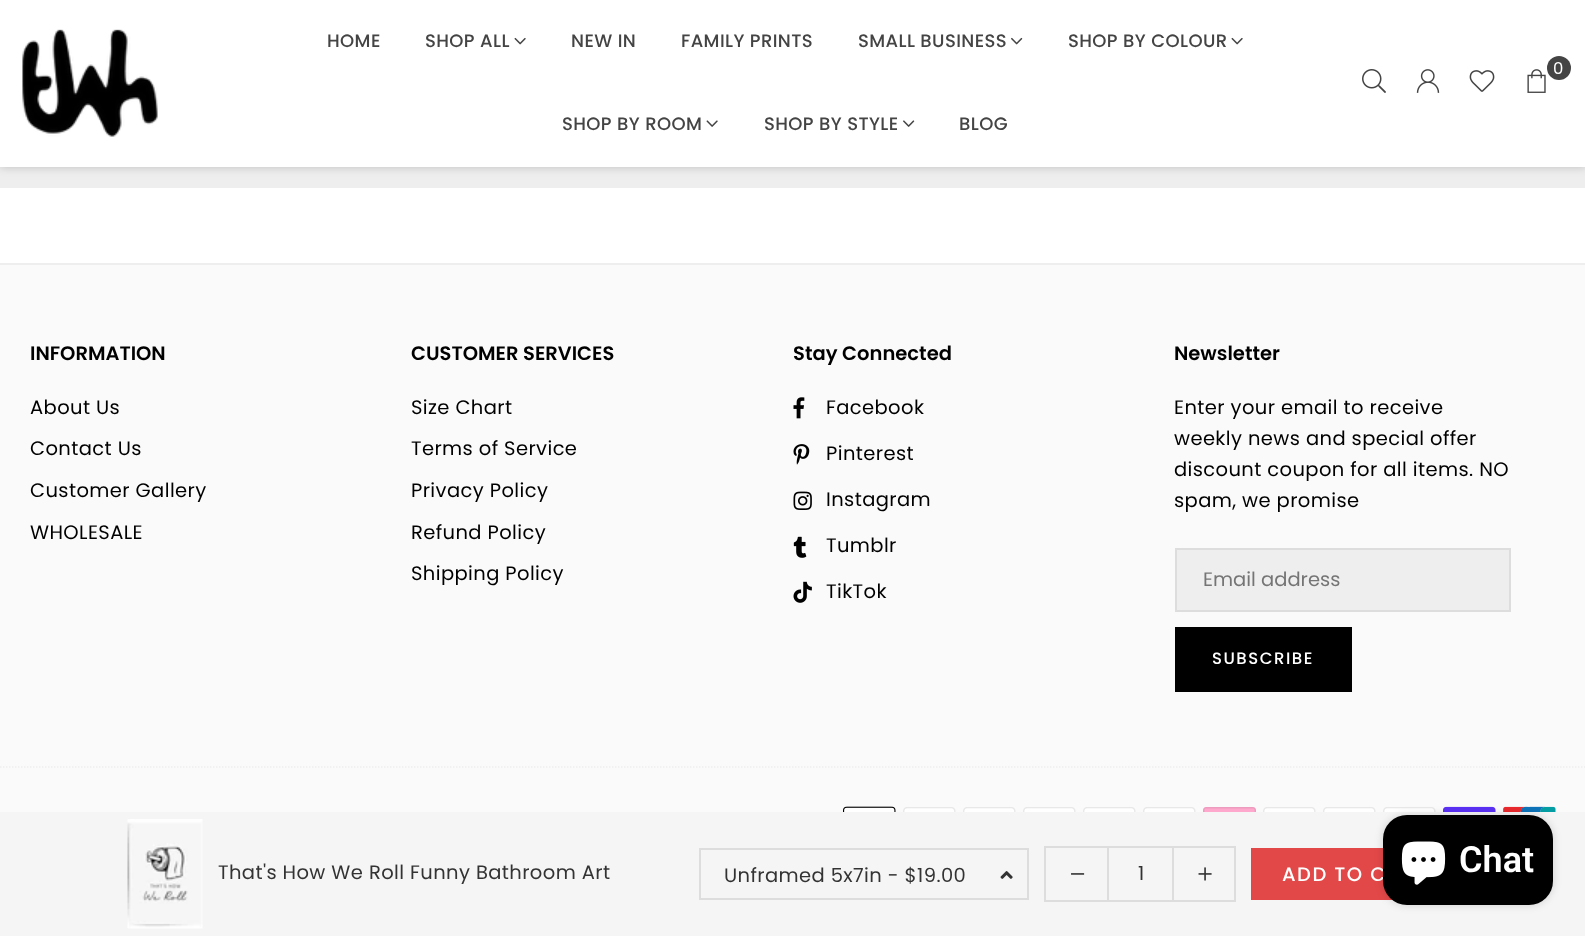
(async () => {
const canvas = document.querySelector("canvas")
canvas.width = 1585
canvas.height = 936
const c = canvas.getContext("2d")
c.miterLimit = 4
c.fontKerning = "normal"
function T(s,x,y){c.fillText(s,x,y)}
function R(x,y,w,h){c.fillRect(x,y,w,h)}
function Q(x,y,w,h,r){c.beginPath();c.roundRect(x,y,w,h,r);c.fill()}
async function I(src,x,y,w,h){const img=new Image();img.src=src;await img.decode();c.drawImage(img,x,y,w,h)}
let path
c.fillStyle="#fff"
R(0,0,1585,936)
c.fillStyle="#eee"
R(0,167,1585,21)
c.fillStyle="#00000033"
c.filter="blur(5px)"
c.beginPath()
c.rect(0,0,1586,167)
c.fill()
c.filter="none"
c.fillStyle="#fff"
R(0,0,1585,167)
await I("1.png",22,29,136,108)
c.letterSpacing="0.4px"
c.font="500 18px Poppins"
c.fillStyle="#444"
T("HOME",327,47)
T("SHOP ALL",425,47)
await I("2.png",514,37,12,8)
T("NEW IN",571,47)
T("FAMILY PRINTS",681,47)
T("SMALL BUSINESS",858,47)
await I("3.png",1011,37,12,8)
T("SHOP BY COLOUR",1068,47)
await I("2.png",1231,37,12,8)
T("SHOP BY ROOM",562,130)
await I("4.png",706,120,12,7)
T("SHOP BY STYLE",764,130)
await I("5.png",903,120,12,7)
T("BLOG",959,130)
c.beginPath()
c.arc(1559,68,12,0,7)
c.fill()
c.font="16.5px Poppins"
c.fillStyle="#fff"
T("0",1553,74)
await I("6.png",1527,69,19,24)
await I("7.png",1362,69,24,24)
await I("8.png",1416,69,24,24)
await I("9.png",1469,70,26,22)
c.fillStyle="#fafafa"
R(0,265,1585,547)
c.fillStyle="#eee"
R(0,263,1585,2)
c.letterSpacing="0px"
c.font="600 19.5px Poppins"
c.fillStyle="#000"
T("INFORMATION",30,360)
c.letterSpacing="0.4px"
c.font="19.5px Poppins"
T("About Us",30,414)
T("Contact Us",30,455)
T("Customer Gallery",30,497)
T("WHOLESALE",30,539)
c.letterSpacing="0px"
c.font="600 19.5px Poppins"
T("CUSTOMER SERVICES",411,360)
c.letterSpacing="0.4px"
c.font="19.5px Poppins"
T("Size Chart",411,414)
T("Terms of Service",411,455)
T("Privacy Policy",411,497)
T("Refund Policy",411,539)
T("Shipping Policy",411,580)
c.letterSpacing="0px"
c.font="600 19.5px Poppins"
T("Stay Connected",793,360)
await I("10.png",793,397,12,22)
c.letterSpacing="0.4px"
c.font="19.5px Poppins"
T("Facebook",826,414)
await I("11.png",793,444,17,21)
T("Pinterest",826,460)
await I("12.png",793,491,19,19)
T("Instagram",826,506)
await I("13.png",793,536,14,22)
T("Tumblr",826,552)
await I("14.png",793,581,19,22)
T("TikTok",826,598)
c.letterSpacing="0px"
c.font="600 19.5px Poppins"
T("Newsletter",1174,360)
c.letterSpacing="0.4px"
c.font="19.5px Poppins"
T("Enter your email to receive",1174,414)
T("weekly news and special offer",1174,445)
T("discount coupon for all items. NO",1174,476)
T("spam, we promise",1174,507)
c.fillStyle="#eee"
c.beginPath()
c.rect(1176,549,334,62)
c.fill()
c.strokeStyle="#ddd"
c.lineWidth=2
c.stroke()
c.letterSpacing="0px"
c.fillStyle="#757575"
T("Email address",1203,586)
c.fillStyle="#000"
R(1175,627,177,65)
c.letterSpacing="1.5px"
c.font="500 16.5px Poppins"
c.fillStyle="#fff"
T("SUBSCRIBE",1212,664)
path = new Path2D("M0 767h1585.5")
c.strokeStyle="#eee"
c.lineWidth=1.5
c.setLineDash([1.5,1.5])
c.stroke(path)
await I("15.png",843,806,53,6)
await I("16.png",903,807,53,5)
await I("16.png",963,807,53,5)
await I("16.png",1023,807,53,5)
await I("16.png",1083,807,53,5)
await I("16.png",1143,807,53,5)
await I("17.png",1203,807,53,5)
await I("16.png",1263,807,53,5)
await I("16.png",1323,807,53,5)
await I("16.png",1383,807,53,5)
await I("18.png",1443,806,53,6)
await I("19.png",1503,806,53,6)
c.fillStyle="#f5f5f5"
R(0,812,1585,124)
await I("20.png",127,819,76,110)
c.letterSpacing="0.4px"
c.font="19.5px Poppins"
c.fillStyle="#333"
T("That's How We Roll Funny Bathroom Art",218,879)
c.strokeStyle="#ddd"
c.lineWidth=2
c.setLineDash([])
c.strokeRect(700,849,328,50)
T("Unframed 5x7in - $19.00",724,882)
await I("21.png",1000,871,13,8)
c.strokeRect(1045,847,190,54)
c.fillStyle="#ddd"
R(1107,848,2,52)
await I("22.png",1071,873,14,2)
c.letterSpacing="0px"
c.fillStyle="#333"
T("1",1138,880)
c.fillStyle="#ddd"
R(1172,848,2,52)
await I("23.png",1198,867,14,14)
c.fillStyle="#e34848"
R(1251,848,142,52)
c.letterSpacing="1.5px"
c.font="500 19.5px Poppins"
c.fillStyle="#fff"
T("ADD TO C",1282,881)
c.fillStyle="#00000026"
c.filter="blur(4px)"
c.beginPath()
c.roundRect(1383,815,170,90,24)
c.fill()
c.filter="none"
c.fillStyle="#000"
Q(1383,815,170,90,24)
await I("24.png",1401,841,45,44)
c.letterSpacing="0px"
c.font="600 36px Roboto"
c.fillStyle="#fff"
T("Chat",1459,872)
})()
